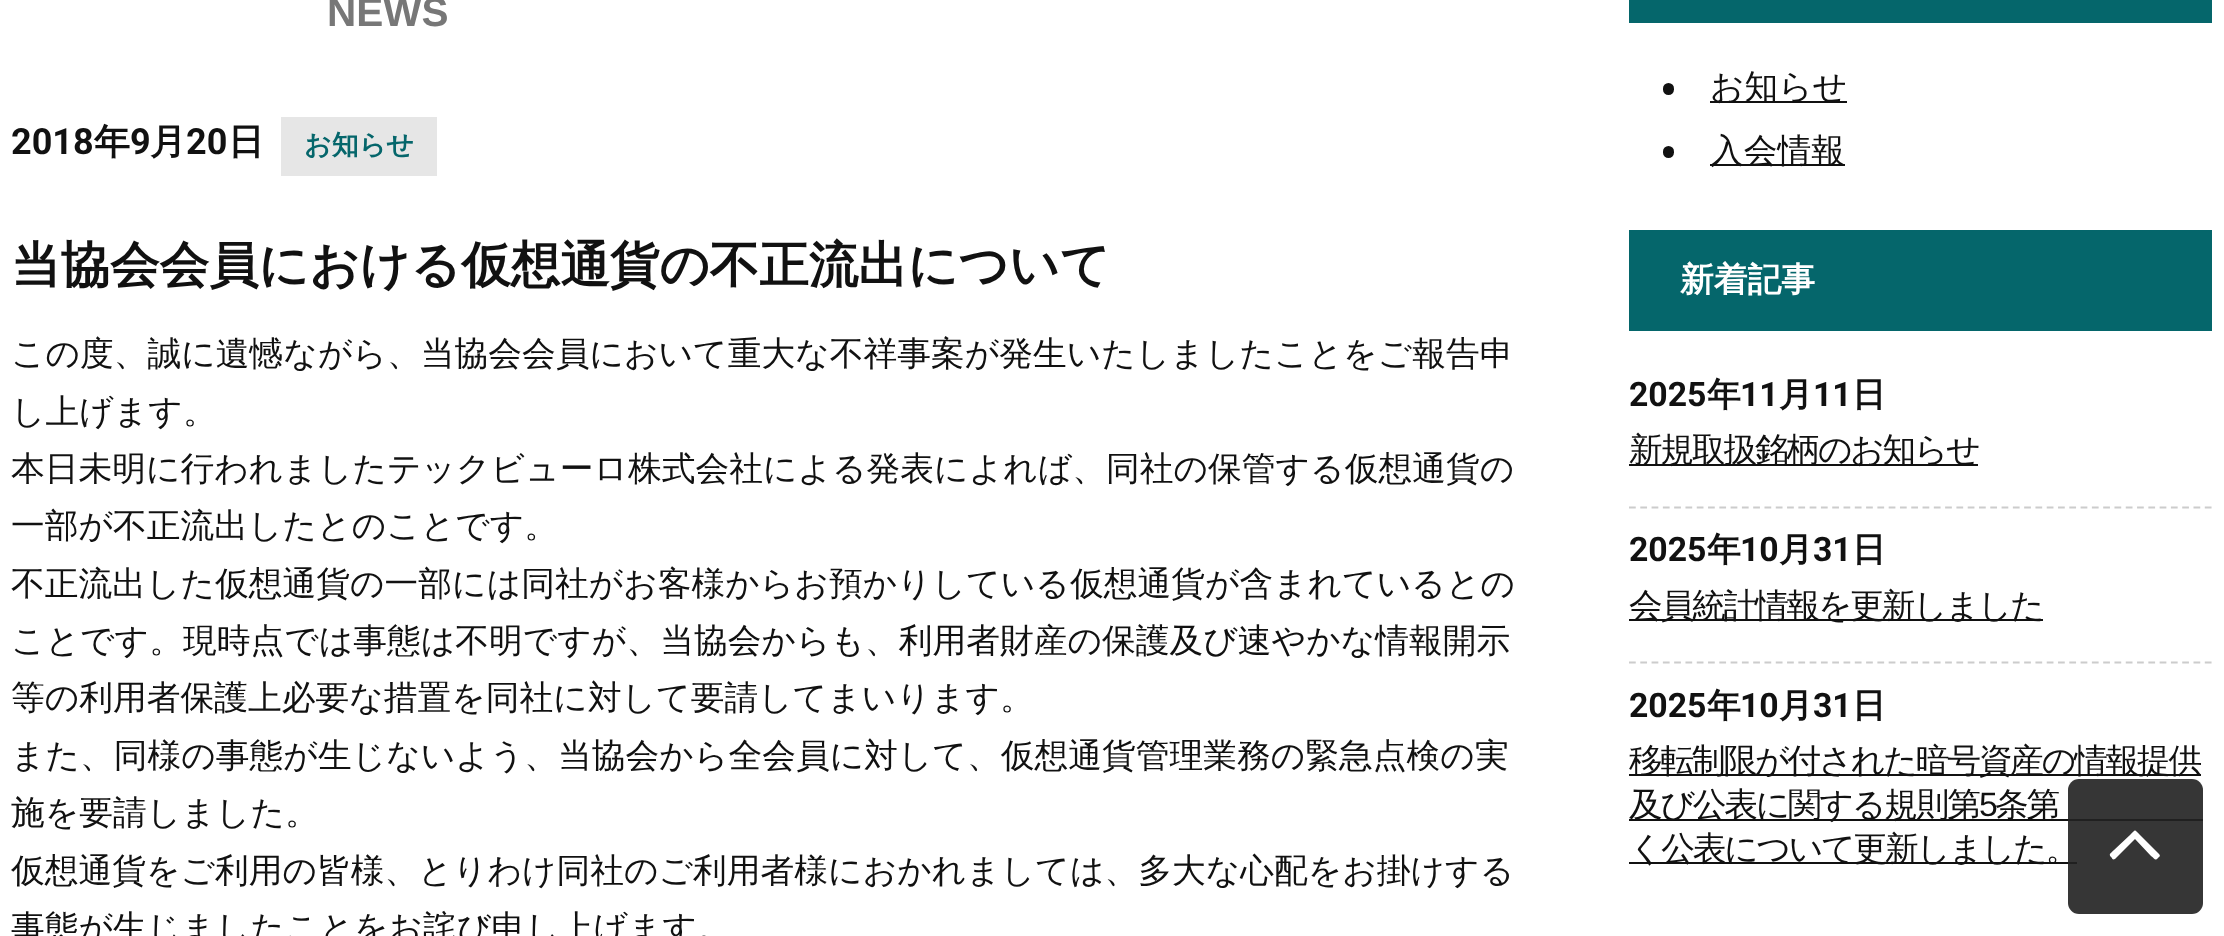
(async () => {
const canvas = document.querySelector("canvas")
canvas.width = 2224
canvas.height = 936
const c = canvas.getContext("2d")
c.miterLimit = 4
c.fontKerning = "normal"
function T(s,x,y){c.fillText(s,x,y)}
function R(x,y,w,h){c.fillRect(x,y,w,h)}
function Q(x,y,w,h,r){c.beginPath();c.roundRect(x,y,w,h,r);c.fill()}
let path
c.fillStyle="#fff"
R(0,0,2224,936)
c.font="bold 40.5px Liberation Sans"
c.fillStyle="#777"
T("NEWS",327,26)
c.font="bold 36px Roboto"
c.fillStyle="#111"
T("2018",11,154)
c.font="bold 36px WenQuanYi Zen Hei"
T("年",94,154)
c.font="bold 36px Roboto"
T("9",130,154)
c.font="bold 36px WenQuanYi Zen Hei"
T("月",150,154)
c.font="bold 36px Roboto"
T("20",186,154)
c.font="bold 36px WenQuanYi Zen Hei"
T("日",228,154)
c.fillStyle="#e6e6e6"
R(281,117,156,59)
c.font="bold 27px WenQuanYi Zen Hei"
c.fillStyle="#05666b"
T("お知らせ",304,154)
c.font="bold 49.5px WenQuanYi Zen Hei"
c.fillStyle="#111"
T("当協会会員における仮想通貨の不正流出について",11,282)
c.font="500 33.75px WenQuanYi Zen Hei"
T("この度、誠に遺憾ながら、当協会会員において重大な不祥事案が発生いたしましたことをご報告申",11,365)
T("し上げます。",11,423)
T("本日未明に行われましたテックビューロ株式会社による発表によれば、同社の保管する仮想通貨の",11,480)
T("一部が不正流出したとのことです。",11,537)
T("不正流出した仮想通貨の一部には同社がお客様からお預かりしている仮想通貨が含まれているとの",11,595)
T("ことです。現時点では事態は不明ですが、当協会からも、利用者財産の保護及び速やかな情報開示",11,652)
T("等の利用者保護上必要な措置を同社に対して要請してまいります。",11,709)
T("また、同様の事態が生じないよう、当協会から全会員に対して、仮想通貨管理業務の緊急点検の実",11,767)
T("施を要請しました。",11,824)
T("仮想通貨をご利用の皆様、とりわけ同社のご利用者様におかれましては、多大な心配をお掛けする",11,882)
T("事態が生じましたことをお詫び申し上げます。",11,939)
c.fillStyle="#05666b"
R(1629,0,583,23)
c.fillStyle="#111"
Q(1663,83,11,12,5.5)
R(1710,101,137,2)
T("お知らせ",1710,98)
Q(1663,146,11,12,5.5)
R(1710,164,135,2)
T("入会情報",1710,162)
c.fillStyle="#05666b"
R(1629,230,583,101)
c.font="bold 33.75px WenQuanYi Zen Hei"
c.fillStyle="#fff"
T("新着記事",1680,291)
path = new Path2D("M1629 507.5h583")
c.strokeStyle="#ccc"
c.lineWidth=2.2
c.setLineDash([6.75,4.54])
c.stroke(path)
c.font="bold 33.75px Roboto"
c.fillStyle="#111"
T("2025",1629,406)
c.font="bold 33.75px WenQuanYi Zen Hei"
T("年",1707,406)
c.font="bold 33.75px Roboto"
T("11",1740,406)
c.font="bold 33.75px WenQuanYi Zen Hei"
T("月",1779,406)
c.font="bold 33.75px Roboto"
T("11",1813,406)
c.font="bold 33.75px WenQuanYi Zen Hei"
T("日",1852,406)
R(1629,464,349,2)
c.letterSpacing="-2.25px"
c.font="500 33.75px WenQuanYi Zen Hei"
T("新規取扱銘柄のお知らせ",1629,461)
path = new Path2D("M1629 662.5h583")
c.stroke(path)
c.letterSpacing="0px"
c.font="bold 33.75px Roboto"
T("2025",1629,561)
c.font="bold 33.75px WenQuanYi Zen Hei"
T("年",1707,561)
c.font="bold 33.75px Roboto"
T("10",1740,561)
c.font="bold 33.75px WenQuanYi Zen Hei"
T("月",1779,561)
c.font="bold 33.75px Roboto"
T("31",1813,561)
c.font="bold 33.75px WenQuanYi Zen Hei"
T("日",1852,561)
R(1629,619,414,2)
c.letterSpacing="-2.25px"
c.font="500 33.75px WenQuanYi Zen Hei"
T("会員統計情報を更新しました",1629,617)
c.letterSpacing="0px"
c.font="bold 33.75px Roboto"
T("2025",1629,717)
c.font="bold 33.75px WenQuanYi Zen Hei"
T("年",1707,717)
c.font="bold 33.75px Roboto"
T("10",1740,717)
c.font="bold 33.75px WenQuanYi Zen Hei"
T("月",1779,717)
c.font="bold 33.75px Roboto"
T("31",1813,717)
c.font="bold 33.75px WenQuanYi Zen Hei"
T("日",1852,717)
R(1629,774,572,2)
c.letterSpacing="-2.25px"
c.font="500 33.75px WenQuanYi Zen Hei"
T("移転制限が付された暗号資産の情報提供",1629,772)
R(1629,819,574,2)
T("及び公表に関する規則第",1629,816)
c.font="33.75px Liberation Sans"
T("5",1979,816)
c.font="500 33.75px WenQuanYi Zen Hei"
T("条第",1995,816)
R(1629,862,448,2)
T("く公表について更新しました。",1629,860)
c.fillStyle="#222222e8"
Q(2068,779,135,135,11)
c.fillStyle="#fff"
path = new Path2D("M2159 854c2 2 0 3-1 4c-3 3-3 1-7-2l-16-17l-20 20c-2 1-3 0-3-1c-4-4-2-4 2-8l16-15c6-6 4-6 10 0z")
c.fill(path)
})()
